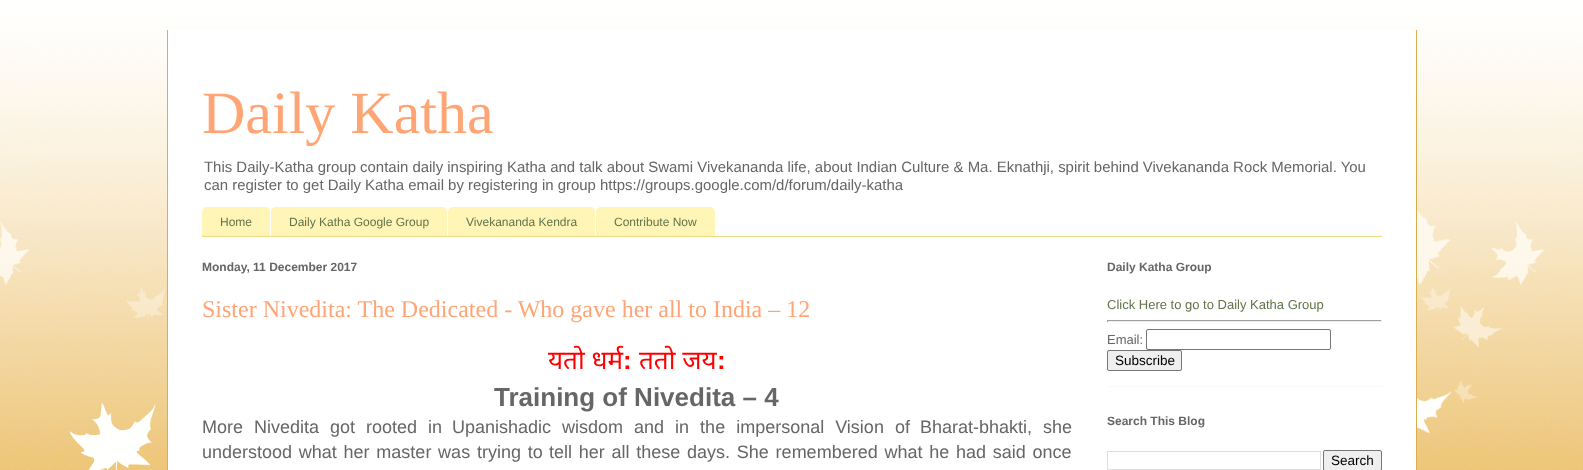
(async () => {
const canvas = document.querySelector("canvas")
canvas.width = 1583
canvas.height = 470
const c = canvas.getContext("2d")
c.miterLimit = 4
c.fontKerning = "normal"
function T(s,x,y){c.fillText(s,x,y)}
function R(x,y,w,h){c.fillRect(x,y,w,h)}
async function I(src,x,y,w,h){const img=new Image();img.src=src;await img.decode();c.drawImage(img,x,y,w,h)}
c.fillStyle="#e3a327"
R(0,0,1583,470)
await I("1.png",0,0,1583,470)
c.fillStyle="#fff"
R(168,30,1248,440)
c.fillStyle="#d8af4c"
R(1416,30,1,440)
R(167,30,1,440)
c.font="60px Liberation Serif"
c.fillStyle="#ffa575"
T("Daily Katha",202,133)
c.font="14.95px Liberation Sans"
c.fillStyle="#666"
T("This Daily-Katha group contain daily inspiring Katha and talk about Swami Vivekananda life, about Indian Culture & Ma. Eknathji, spirit behind Vivekananda Rock Memorial. You",204,172)
T("can register to get Daily Katha email by registering in group https://groups.google.com/d/forum/daily-katha",204,190)
c.fillStyle="#eddc83"
R(202,236,1180,1)
c.fillStyle="#fff5b7"
c.beginPath()
c.roundRect(202,207,68,29,[5,5,0,0])
c.fill()
c.font="12px Liberation Sans"
c.fillStyle="#627349"
T("Home",220,226)
c.fillStyle="#fff5b7"
c.beginPath()
c.roundRect(271,207,176,29,[5,5,0,0])
c.fill()
c.fillStyle="#627349"
T("Daily Katha Google Group",289,226)
c.fillStyle="#fff5b7"
c.beginPath()
c.roundRect(448,207,147,29,[5,5,0,0])
c.fill()
c.fillStyle="#627349"
T("Vivekananda Kendra",466,226)
c.fillStyle="#fff5b7"
c.beginPath()
c.roundRect(596,207,119,29,[5,5,0,0])
c.fill()
c.fillStyle="#627349"
T("Contribute Now",614,226)
c.font="bold 12px Liberation Sans"
c.fillStyle="#666"
T("Monday, 11 December 2017",202,271)
c.font="24px Liberation Serif"
c.fillStyle="#ffa575"
T("Sister Nivedita: The Dedicated - Who gave her all to India – 12",202,317)
c.font="26px Noto Sans"
c.fillStyle="#f00"
T("यतो धर्म",548,369)
c.font="bold 26px Liberation Sans"
T(":",623,369)
c.font="26px Noto Sans"
T("ततो जय",639,369)
c.font="bold 26px Liberation Sans"
T(":",717,369)
c.fillStyle="#666"
T("Training of Nivedita – 4",494,406)
c.wordSpacing="6px"
c.font="18px Liberation Sans"
T("More Nivedita got rooted in",202,433)
T("Upanishadic wisdom and in the impersonal Vision of",452,433)
T("Bharat-bhakti, she",920,433)
c.wordSpacing="1.75px"
T("understood what her master was trying to",202,458)
T("tell her all these days. She remembered what he had said once",549,458)
c.fillStyle="#f9f9f9"
R(1107,386,275,1)
c.wordSpacing="0px"
c.font="bold 12px Liberation Sans"
c.fillStyle="#666"
T("Daily Katha Group",1107,271)
c.font="13px Liberation Sans"
c.fillStyle="#627349"
T("Click Here to go to Daily Katha Group",1107,309)
c.fillStyle="#9f9f9f"
R(1107,320,275,1)
c.fillStyle="#eee"
R(1381,320,1,2)
R(1107,321,275,1)
c.fillStyle="#9f9f9f"
R(1107,320,1,2)
c.fillStyle="#666"
T("Email:",1107,344)
c.beginPath()
c.roundRect(1146.5,329.5,184,20,1.5)
c.strokeStyle="#767676"
c.stroke()
c.fillStyle="#efefef"
c.beginPath()
c.roundRect(1107.5,350.5,74,20,1.5)
c.fill()
c.stroke()
c.font="13.5px Liberation Sans"
c.fillStyle="#000"
T("Subscribe",1115,365)
c.font="bold 12px Liberation Sans"
c.fillStyle="#666"
T("Search This Blog",1107,425)
c.strokeStyle="#ddd"
c.strokeRect(1107.5,451.5,213,18)
c.fillStyle="#efefef"
c.beginPath()
c.roundRect(1323.5,450.5,58,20,1.5)
c.fill()
c.strokeStyle="#767676"
c.stroke()
c.font="13.5px Liberation Sans"
c.fillStyle="#000"
T("Search",1331,465)
})()
